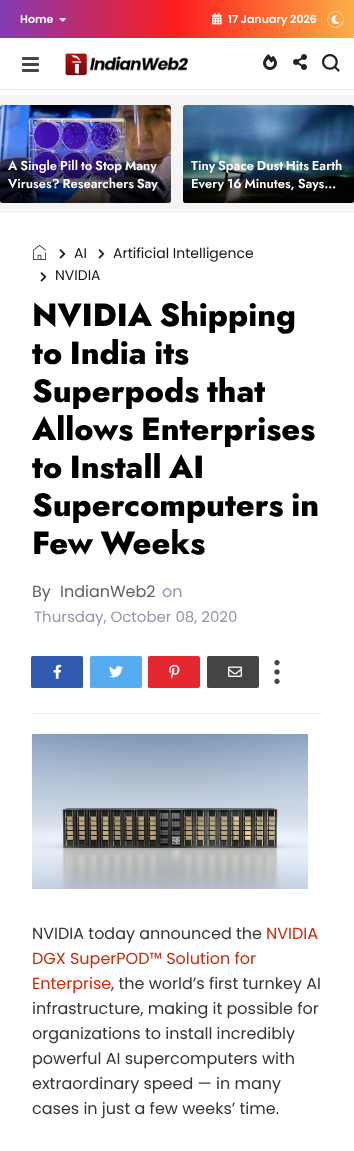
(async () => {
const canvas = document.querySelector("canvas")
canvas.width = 354
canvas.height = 1151
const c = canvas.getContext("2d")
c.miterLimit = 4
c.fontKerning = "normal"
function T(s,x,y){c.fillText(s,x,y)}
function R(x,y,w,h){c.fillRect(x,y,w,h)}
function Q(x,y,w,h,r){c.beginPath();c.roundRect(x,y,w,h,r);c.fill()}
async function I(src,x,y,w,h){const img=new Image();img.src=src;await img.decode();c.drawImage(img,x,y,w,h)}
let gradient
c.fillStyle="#fff"
R(0,0,354,1151)
gradient = c.createLinearGradient(0,19,354,19)
gradient.addColorStop(0,"#833ab4")
gradient.addColorStop(.5,"#fd1d1d")
gradient.addColorStop(1,"#fcb045")
c.fillStyle = gradient
R(0,0,354,38)
c.font="600 11px Poppins"
c.fillStyle="#fff"
T("Home",20,23)
await I("1.png",59,18,8,4)
await I("2.png",212,13,10,12)
T("17 January 2026",228,23)
c.beginPath()
c.arc(335.5,19.5,8,0,7)
c.strokeStyle="#dcdcdc"
c.stroke()
await I("3.png",331,15,9,10)
c.fillStyle="#e9e9e9"
R(0,89,354,1)
c.fillStyle="#454545"
Q(22,57,17,3,1)
Q(22,63,17,3,1)
Q(22,69,17,3,1)
await I("4.png",65,53,124,23)
await I("5.png",263,54,14,16)
await I("6.png",293,54,14,16)
await I("7.png",322,54,18,18)
c.fillStyle="#f4f4f4"
R(0,95,354,118)
await I("8.png",0,105,171,98)
gradient = c.createLinearGradient(86,146,86,203)
gradient.addColorStop(0,"#00000000")
gradient.addColorStop(1,"#000000cf")
c.fillStyle = gradient
c.beginPath()
c.roundRect(0,146,171,57,[0,0,3,3])
c.fill()
c.wordSpacing="-1px"
c.font="600 13px Jost"
c.fillStyle="#fff"
T("A Single Pill to Stop Many",8,170)
T("Viruses? Researchers Say",8,188)
await I("9.png",183,105,171,98)
gradient = c.createLinearGradient(269,146,269,203)
gradient.addColorStop(0,"#00000000")
gradient.addColorStop(1,"#000000cf")
c.fillStyle = gradient
c.beginPath()
c.roundRect(183,146,171,57,[0,0,3,3])
c.fill()
c.fillStyle="#fff"
T("Tiny Space Dust Hits Earth",191,170)
T("Every 16 Minutes, Says…",191,188)
await I("10.png",33,245,13,15)
await I("11.png",59,249,7,10)
c.wordSpacing="0px"
c.font="14px Poppins"
c.fillStyle="#151515"
T("AI",74,258)
await I("11.png",98,249,7,10)
T("Artificial Intelligence",113,258)
await I("11.png",40,272,7,10)
T("NVIDIA",55,280)
c.wordSpacing="-2px"
c.font="800 32px Jost"
c.fillStyle="#000"
T("NVIDIA Shipping",32,326)
T("to India its",32,364)
T("Superpods that",32,402)
T("Allows Enterprises",32,440)
T("to Install AI",32,478)
T("Supercomputers in",32,516)
T("Few Weeks",32,554)
c.wordSpacing="0px"
c.font="16px Poppins"
c.fillStyle="#616161"
T("By",32,597)
T("IndianWeb2",60,597)
c.fillStyle="#9495af"
T("on",162,597)
c.font="15px Poppins"
T("Thursday, October 08, 2020",34,622)
c.fillStyle="#efefef"
R(32,713,290,1)
await I("12.png",31,656,52,32)
c.fillStyle="#3059b0"
Q(31,656,52,32,2)
await I("13.png",53,664,9,15)
await I("14.png",90,656,52,32)
c.fillStyle="#55acef"
Q(90,656,52,32,2)
await I("15.png",109,666,14,12)
await I("16.png",148,656,2,32)
c.fillStyle="#e52730"
Q(148,656,52,32,2)
await I("17.png",169,664,11,15)
await I("18.png",207,656,52,32)
c.fillStyle="#444"
Q(207,656,52,32,2)
await I("19.png",228,666,14,11)
await I("20.png",274,660,6,24)
await I("21.png",32,734,276,155)
c.font="16px Poppins"
c.fillStyle="#353535"
T("NVIDIA today announced the",32,939)
c.fillStyle="#cb2909"
T("NVIDIA",266,939)
T("DGX SuperPOD™ Solution for",32,964)
T("Enterprise",32,989)
c.fillStyle="#353535"
T(", the world’s first turnkey AI",111,989)
T("infrastructure, making it possible for",32,1014)
T("organizations to install incredibly",32,1039)
T("powerful AI supercomputers with",32,1064)
T("extraordinary speed — in many",32,1089)
T("cases in just a few weeks’ time.",32,1114)
})()
